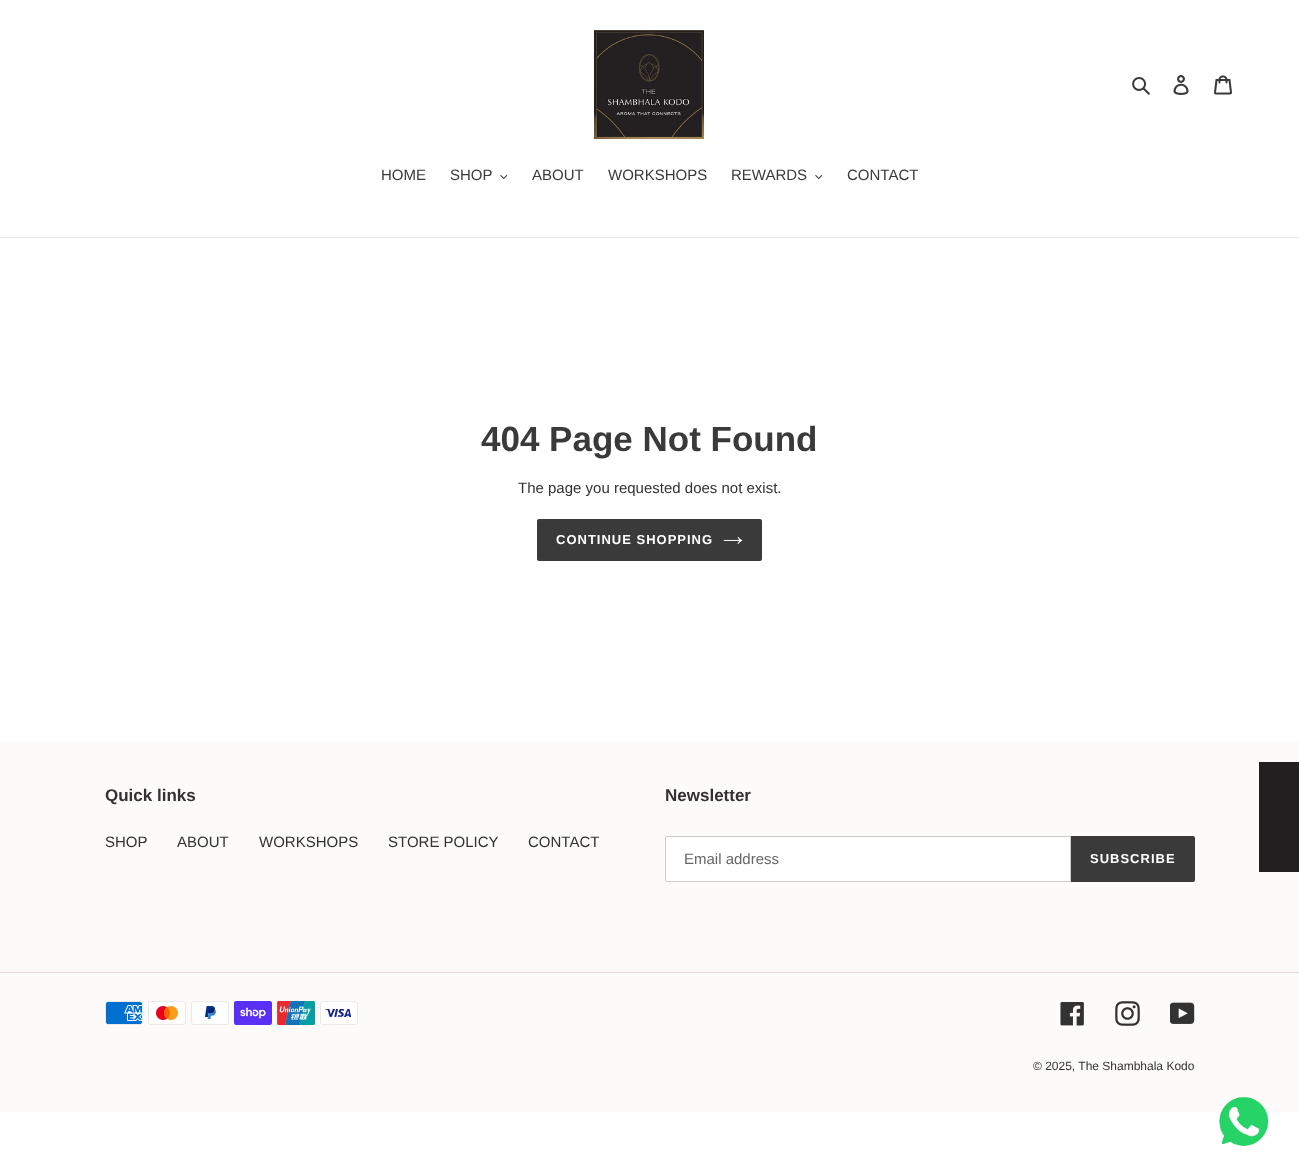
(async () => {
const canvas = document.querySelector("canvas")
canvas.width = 1299
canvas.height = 1172
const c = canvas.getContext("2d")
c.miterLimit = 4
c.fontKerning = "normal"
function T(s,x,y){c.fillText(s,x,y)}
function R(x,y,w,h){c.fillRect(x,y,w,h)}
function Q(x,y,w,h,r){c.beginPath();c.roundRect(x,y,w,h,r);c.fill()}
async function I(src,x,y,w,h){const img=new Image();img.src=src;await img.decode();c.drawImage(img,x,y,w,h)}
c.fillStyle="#fff"
R(0,0,1299,1172)
await I("1.png",594,30,110,109)
await I("2.png",1132,77,18,18)
await I("3.png",1173,75,16,20)
await I("4.png",1214,75,18,20)
c.fillStyle="#ebebeb"
R(0,237,1299,1)
c.font="15px Liberation Sans"
c.fillStyle="#3a3a3a"
T("HOME",381,180)
T("SHOP",450,180)
await I("5.png",500,175,8,4)
T("ABOUT",532,180)
T("WORKSHOPS",608,180)
T("REWARDS",731,180)
await I("5.png",815,175,8,4)
T("CONTACT",847,180)
c.font="bold 35px Liberation Sans"
T("404 Page Not Found",481,451)
c.font="15px Liberation Sans"
c.fillStyle="#333232"
T("The page you requested does not exist.",518,493)
c.fillStyle="#3a3a3a"
Q(537,519,225,42,2)
c.letterSpacing="1px"
c.font="bold 13px Liberation Sans"
c.fillStyle="#fff"
T("CONTINUE SHOPPING",556,544)
await I("6.png",723,536,20,8)
c.fillStyle="#fdfafa"
R(0,741,1299,371)
c.letterSpacing="0px"
c.font="bold 17px Liberation Sans"
c.fillStyle="#333232"
T("Quick links",105,801)
c.font="15px Liberation Sans"
T("SHOP",105,847)
T("ABOUT",177,847)
T("WORKSHOPS",259,847)
T("STORE POLICY",388,847)
T("CONTACT",528,847)
c.font="bold 17px Liberation Sans"
T("Newsletter",665,801)
c.fillStyle="#fff"
c.beginPath()
c.roundRect(665.5,836.5,405,45,[1.5,0,0,1.5])
c.fill()
c.strokeStyle="#ccc"
c.stroke()
c.font="15px Liberation Sans"
c.fillStyle="#666"
T("Email address",684,864)
c.fillStyle="#3a3a3a"
c.beginPath()
c.roundRect(1071,836,124,46,[0,2,2,0])
c.fill()
c.letterSpacing="1px"
c.font="bold 13px Liberation Sans"
c.fillStyle="#fff"
T("SUBSCRIBE",1090,863)
c.fillStyle="#eed6d6"
R(0,972,1299,1)
await I("7.png",105,1001,38,24)
await I("8.png",148,1001,38,24)
await I("9.png",191,1001,38,24)
await I("10.png",234,1001,38,24)
await I("11.png",277,1001,38,24)
await I("12.png",320,1001,38,24)
await I("13.png",1060,1002,24,24)
await I("14.png",1115,1001,25,25)
await I("15.png",1170,1002,25,22)
c.letterSpacing="0px"
c.font="12px Liberation Sans"
c.fillStyle="#333232"
T("© 2025, The Shambhala Kodo",1033,1070)
c.fillStyle="#231f20"
R(1259,762,40,110)
await I("16.png",1219,1096,50,50)
})()
